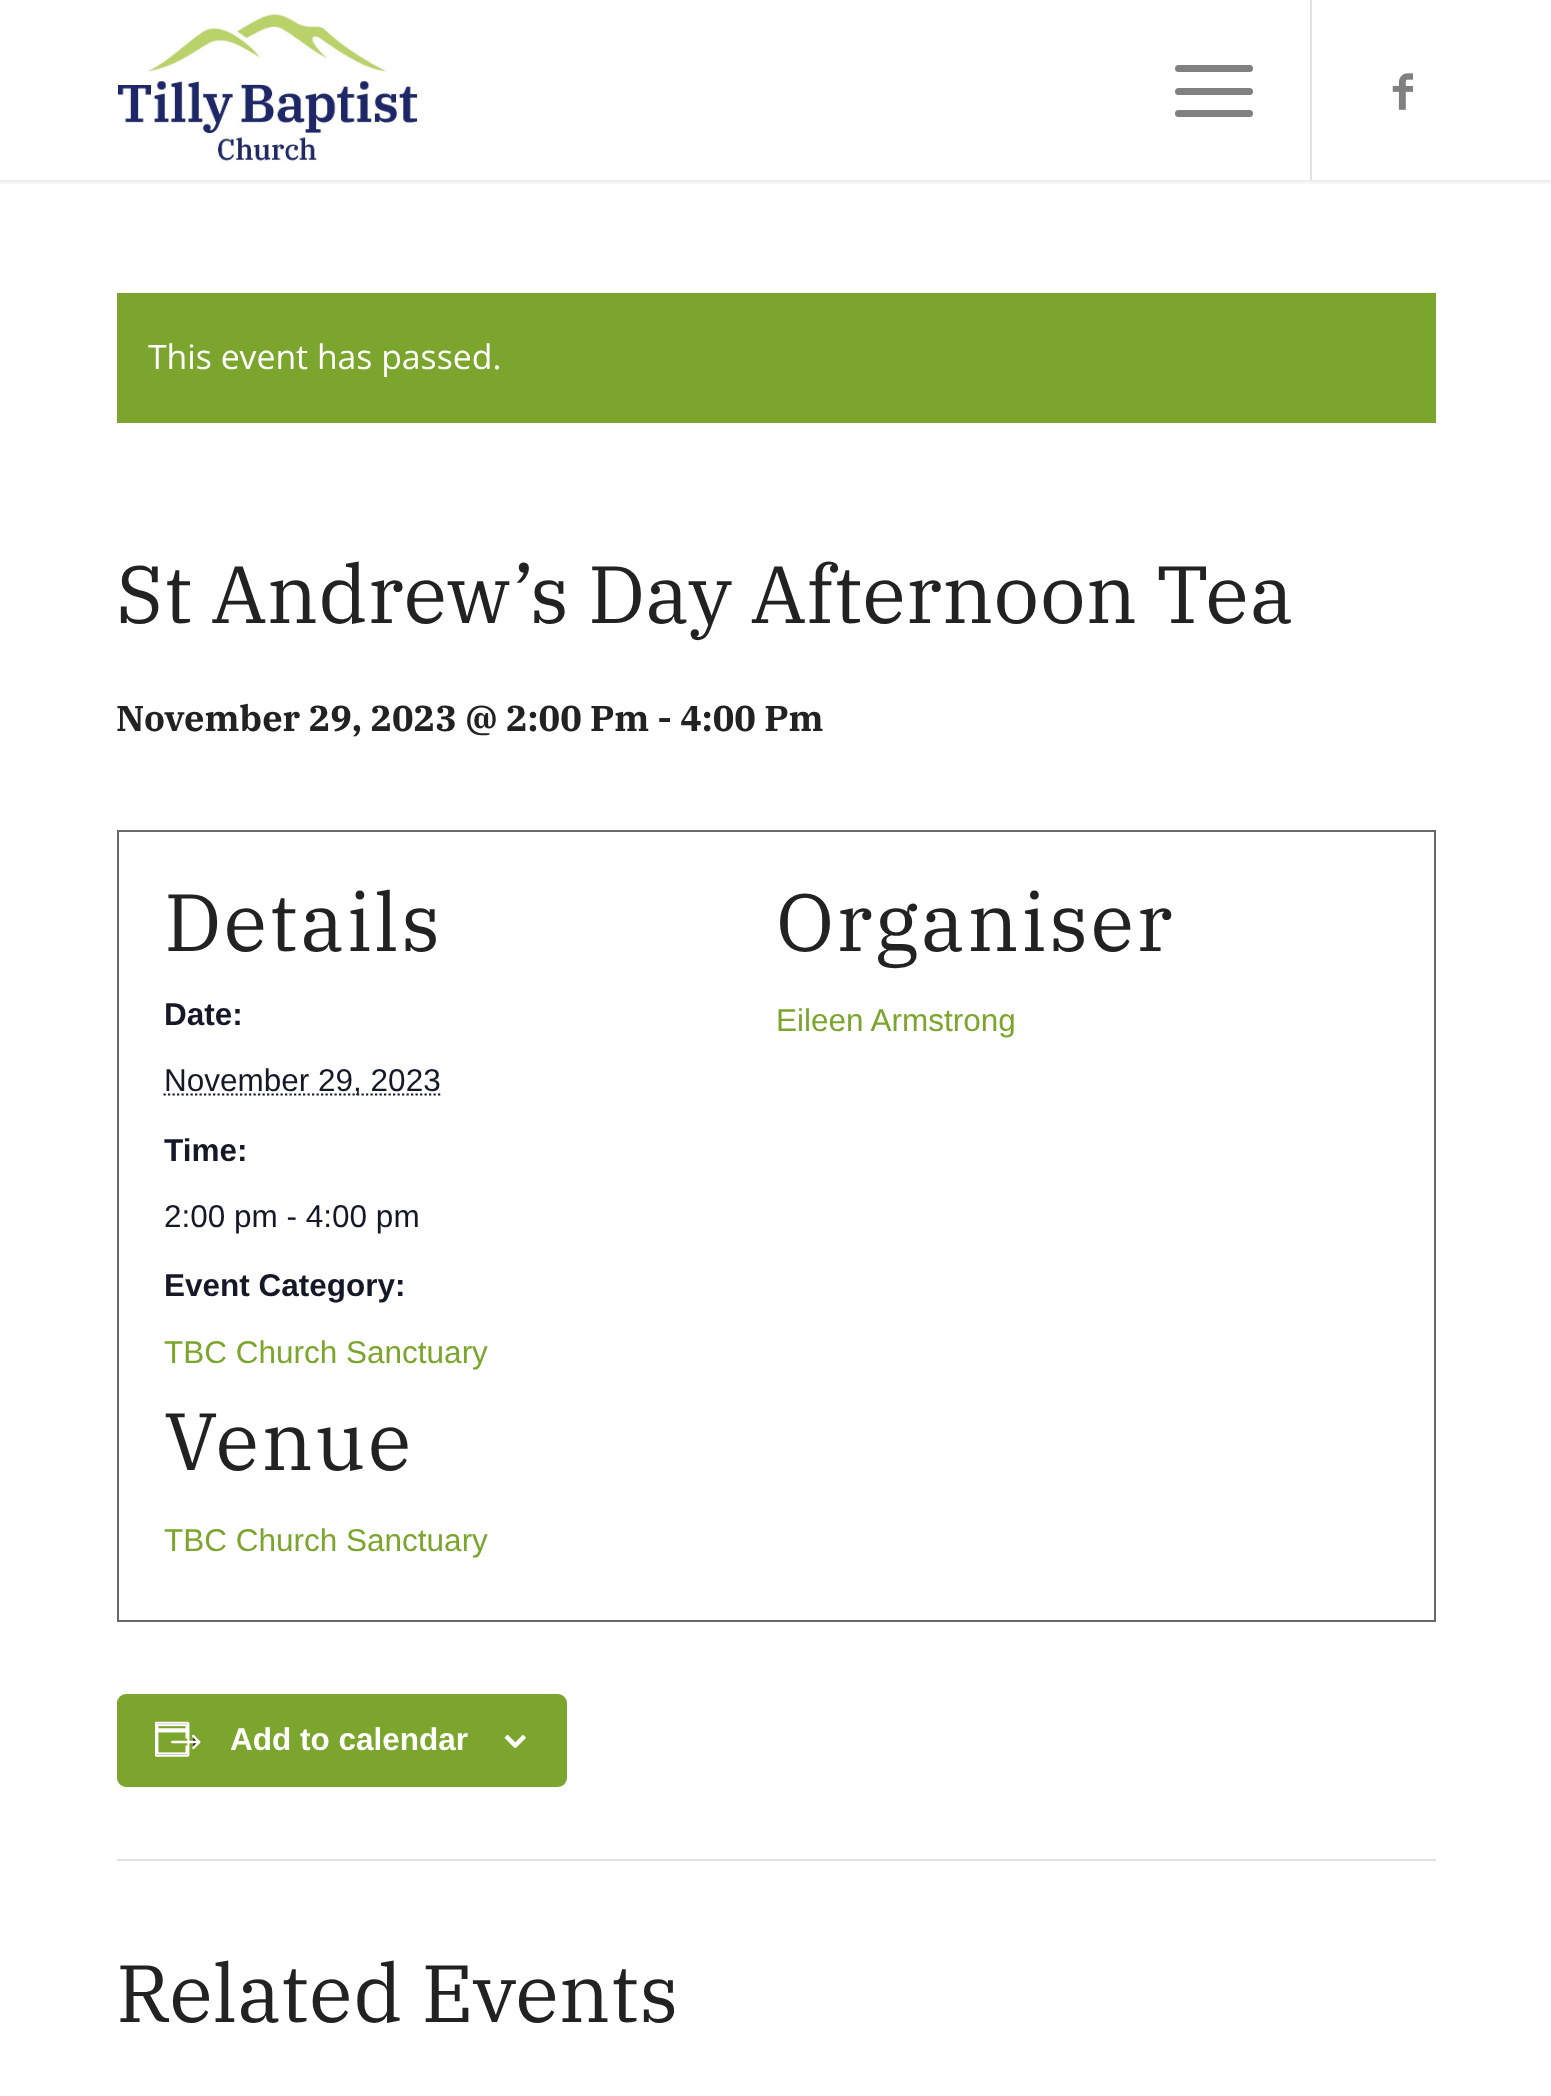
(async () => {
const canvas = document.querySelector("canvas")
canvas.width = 1551
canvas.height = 2096
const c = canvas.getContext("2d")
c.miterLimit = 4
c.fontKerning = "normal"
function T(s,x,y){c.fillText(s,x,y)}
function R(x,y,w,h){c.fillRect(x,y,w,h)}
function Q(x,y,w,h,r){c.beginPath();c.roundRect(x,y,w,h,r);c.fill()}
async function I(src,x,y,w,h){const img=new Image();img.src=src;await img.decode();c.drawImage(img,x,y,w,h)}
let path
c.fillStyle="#fff"
R(0,0,1551,2096)
c.save()
c.beginPath()
c.rect(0,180,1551,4)
c.clip()
c.fillStyle="#0000001a"
c.filter="blur(2px)"
c.beginPath()
c.rect(-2,-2,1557,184)
c.fill()
c.filter="none"
c.restore()
await I("1.png",117,13,302,150)
c.fillStyle="#e1e1e1"
R(1310,0,2,180)
c.fillStyle="#808080"
Q(1175,88,78,7,3.5)
Q(1175,65,78,7,3.5)
Q(1175,110,78,7,3.5)
await I("2.png",1392,73,21,37)
c.fillStyle="#7ba52c"
R(117,293,1319,130)
c.font="33.75px Open Sans"
c.fillStyle="#fff"
T("This event has passed.",148,369)
c.font="81px IBM Plex Serif"
c.fillStyle="#222"
T("St Andrew’s Day Afternoon Tea",116,623)
c.font="bold 36px IBM Plex Serif"
T("November 29, 2023 @ 2:00 Pm - 4:00 Pm",116,731)
c.strokeStyle="#696969"
c.lineWidth=2
c.strokeRect(118,831,1317,790)
c.letterSpacing="2.25px"
c.font="81px IBM Plex Serif"
T("Details",164,951)
c.letterSpacing="0px"
c.font="bold 31.5px Liberation Sans"
c.fillStyle="#141827"
T("Date:",164,1025)
path = new Path2D("M163.5 1094.5h277")
c.strokeStyle="#141827"
c.lineWidth=2.2
c.setLineDash([2.25,2.25])
c.stroke(path)
c.font="31.5px Liberation Sans"
T("November 29, 2023",164,1091)
c.font="bold 31.5px Liberation Sans"
T("Time:",164,1161)
c.font="31.5px Liberation Sans"
T("2:00 pm - 4:00 pm",164,1227)
c.font="bold 31.5px Liberation Sans"
T("Event Category:",164,1296)
c.font="31.5px Liberation Sans"
c.fillStyle="#7ba52c"
T("TBC Church Sanctuary",164,1363)
c.letterSpacing="2.25px"
c.font="81px IBM Plex Serif"
c.fillStyle="#222"
T("Organiser",776,951)
c.letterSpacing="0px"
c.font="31.5px Liberation Sans"
c.fillStyle="#7ba52c"
T("Eileen Armstrong",776,1031)
c.letterSpacing="2.25px"
c.font="81px IBM Plex Serif"
c.fillStyle="#222"
T("Venue",164,1470)
c.letterSpacing="0px"
c.font="31.5px Liberation Sans"
c.fillStyle="#7ba52c"
T("TBC Church Sanctuary",164,1551)
c.beginPath()
c.roundRect(118,1695,448,91,8)
c.fill()
c.strokeStyle="#7ba52c"
c.lineWidth=2
c.setLineDash([])
c.stroke()
await I("3.png",155,1721,46,36)
c.font="bold 31.5px Liberation Sans"
c.fillStyle="#fff"
T("Add to calendar",230,1750)
await I("4.png",504,1735,22,13)
c.fillStyle="#e1e1e1"
R(117,1859,1319,2)
c.font="81px IBM Plex Serif"
c.fillStyle="#222"
T("Related Events",116,2022)
})()
